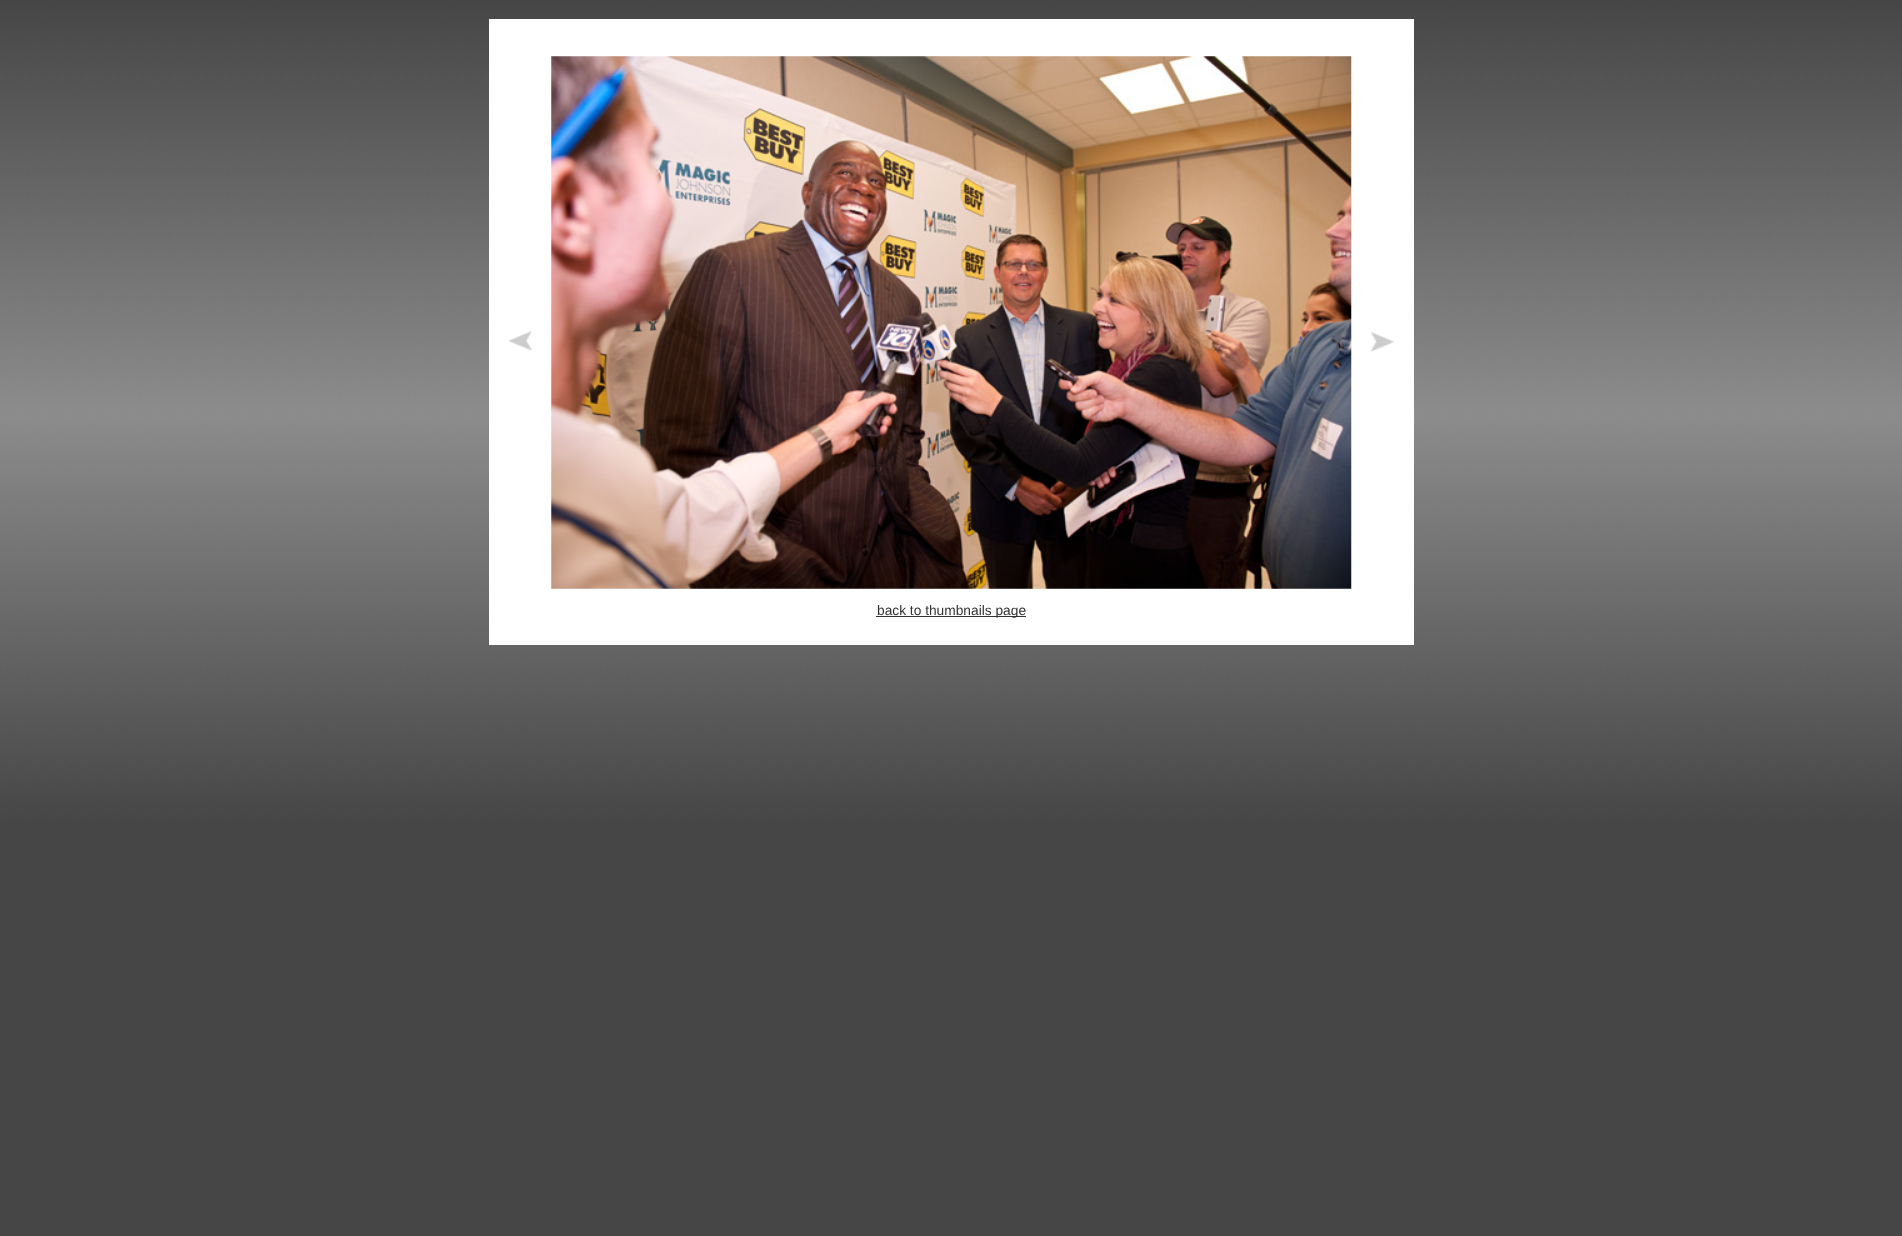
(async () => {
const canvas = document.querySelector("canvas")
canvas.width = 1902
canvas.height = 1236
const c = canvas.getContext("2d")
c.miterLimit = 4
c.fontKerning = "normal"
function T(s,x,y){c.fillText(s,x,y)}
function R(x,y,w,h){c.fillRect(x,y,w,h)}
async function I(src,x,y,w,h){const img=new Image();img.src=src;await img.decode();c.drawImage(img,x,y,w,h)}
c.fillStyle="#fff"
R(0,0,1902,1236)
await I("1.png",0,0,1902,1236)
R(489,19,925,626)
await I("2.png",508,331,24,20)
await I("3.png",1370,332,24,20)
await I("4.png",551,56,801,533)
c.fillStyle="#333"
R(876,616,150,1)
c.font="13.75px Liberation Sans"
T("back to thumbnails page",877,615)
})()
